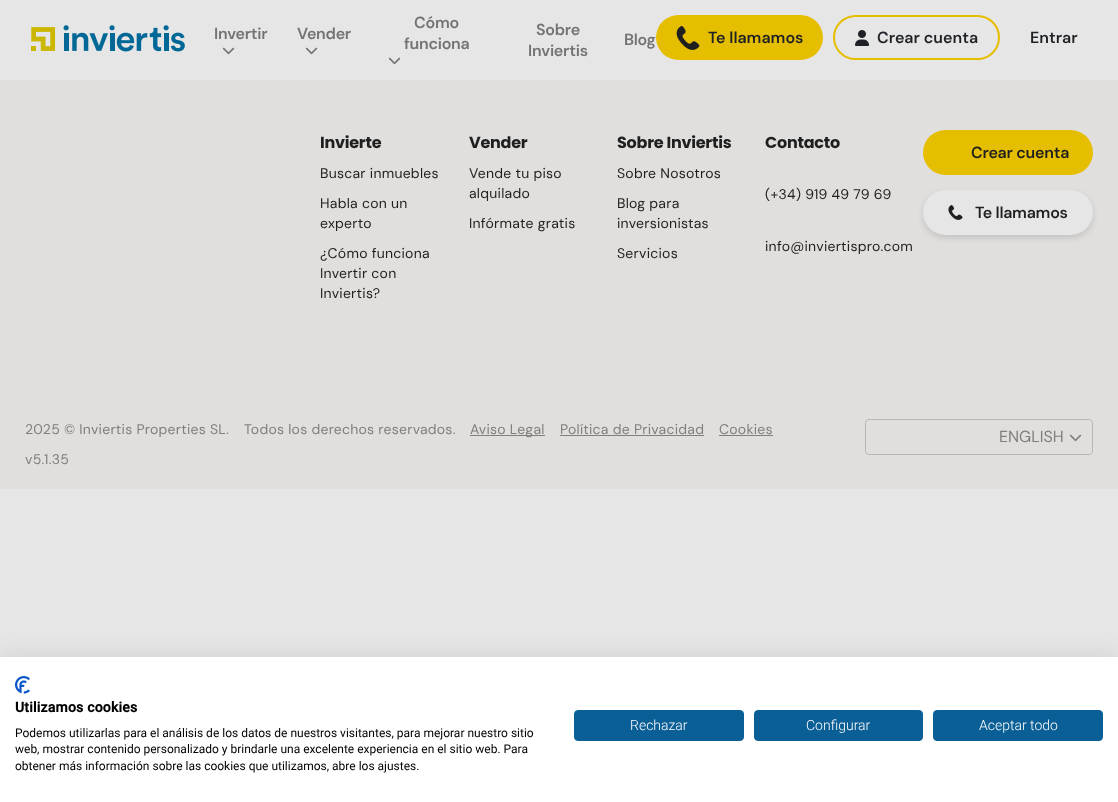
(async () => {
const canvas = document.querySelector("canvas")
canvas.width = 1118
canvas.height = 802
const c = canvas.getContext("2d")
c.miterLimit = 4
c.fontKerning = "normal"
function T(s,x,y){c.fillText(s,x,y)}
function R(x,y,w,h){c.fillRect(x,y,w,h)}
function Q(x,y,w,h,r){c.beginPath();c.roundRect(x,y,w,h,r);c.fill()}
async function I(src,x,y,w,h){const img=new Image();img.src=src;await img.decode();c.drawImage(img,x,y,w,h)}
c.fillStyle="#e6e6e6"
R(0,0,1118,802)
await I("1.png",31,25,154,27)
c.letterSpacing="-0.25px"
c.font="600 16px DM Sans"
c.fillStyle="#737373"
T("Invertir",214,39)
await I("2.png",222,47,13,8)
T("Vender",297,39)
await I("2.png",305,47,13,8)
T("Cómo",414,28)
T("funciona",404,49)
await I("2.png",388,57,13,8)
T("Sobre",536,35)
T("Inviertis",528,56)
T("Blog",624,45)
c.fillStyle="#e6be00"
Q(656,15,167,45,22.5)
await I("3.png",676,26,24,24)
c.letterSpacing="0px"
c.fillStyle="#1e2125"
T("Te llamamos",708,43)
c.beginPath()
c.roundRect(834,16,165,43,21.5)
c.strokeStyle="#e6be00"
c.lineWidth=2
c.stroke()
await I("4.png",855,30,14,16)
T("Crear cuenta",877,43)
T("Entrar",1030,43)
c.fillStyle="#e1dfdd"
R(0,80,1118,409)
c.letterSpacing="-0.25px"
c.font="bold 16px Poppins"
c.fillStyle="#1f1f1f"
T("Invierte",320,148)
c.letterSpacing="0.25px"
c.font="14px DM Sans"
T("Buscar inmuebles",320,178)
T("Habla con un",320,208)
T("experto",320,228)
T("¿Cómo funciona",320,258)
T("Invertir con",320,278)
T("Inviertis?",320,298)
c.letterSpacing="-0.25px"
c.font="bold 16px Poppins"
T("Vender",469,148)
c.letterSpacing="0.25px"
c.font="14px DM Sans"
T("Vende tu piso",469,178)
T("alquilado",469,198)
T("Infórmate gratis",469,228)
c.letterSpacing="-0.25px"
c.font="bold 16px Poppins"
T("Sobre Inviertis",617,148)
c.letterSpacing="0.25px"
c.font="14px DM Sans"
T("Sobre Nosotros",617,178)
T("Blog para",617,208)
T("inversionistas",617,228)
T("Servicios",617,258)
c.letterSpacing="-0.25px"
c.font="bold 16px Poppins"
T("Contacto",765,148)
c.letterSpacing="0.25px"
c.font="14px DM Sans"
T("(+34) 919 49 79 69",765,199)
T("info@inviertispro.com",765,251)
c.fillStyle="#e6be00"
Q(923,130,170,45,22.5)
c.letterSpacing="-0.25px"
c.font="600 16px DM Sans"
c.fillStyle="#1f1f1f"
T("Crear cuenta",971,158)
c.fillStyle="#0000001f"
c.filter="blur(3px)"
c.beginPath()
c.roundRect(923,193,170,45,22.5)
c.fill()
c.filter="none"
c.fillStyle="#e6e6e6"
Q(923,190,170,45,22.5)
await I("5.png",948,205,15,15)
c.fillStyle="#1f1f1f"
T("Te llamamos",975,218)
c.letterSpacing="0.25px"
c.font="14px DM Sans"
c.fillStyle="#807f7e"
T("2025 © Inviertis Properties SL.",25,434)
T("Todos los derechos reservados.",244,434)
R(470,435,75,1)
T("Aviso Legal",470,434)
T("Política de Privacidad",560,434)
R(560,435,144,1)
T("Cookies",719,434)
R(719,435,54,1)
T("v5.1.35",25,464)
c.beginPath()
c.roundRect(865.5,419.5,227,35,3.5)
c.strokeStyle="#b9b8b6"
c.lineWidth=1
c.stroke()
c.letterSpacing="0px"
c.font="16px DM Sans"
T("ENGLISH",999,442)
await I("6.png",1069,434,13,8)
c.fillStyle="#0000001a"
c.filter="blur(12px)"
c.beginPath()
c.rect(0,657,1118,145)
c.fill()
c.filter="none"
c.fillStyle="#fff"
R(0,657,1118,145)
await I("7.png",15,676,15,18)
c.letterSpacing="0.2px"
c.font="bold 14px Roboto"
c.fillStyle="#000"
T("Utilizamos cookies",15,712)
c.letterSpacing="0px"
c.font="12px Roboto"
T("Podemos utilizarlas para el análisis de los datos de nuestros visitantes, para mejorar nuestro sitio",15,737)
T("web, mostrar contenido personalizado y brindarle una excelente experiencia en el sitio web. Para",15,753)
T("obtener más información sobre las cookies que utilizamos, abre los ajustes.",15,770)
c.fillStyle="#0b5f97"
c.beginPath()
c.roundRect(574.5,710.5,169,30,3.5)
c.fill()
c.strokeStyle="#0b5f97"
c.stroke()
c.font="300 14px Roboto"
c.fillStyle="#fff"
T("Rechazar",630,730)
c.fillStyle="#0b5f97"
c.beginPath()
c.roundRect(754.5,710.5,168,30,3.5)
c.fill()
c.stroke()
c.fillStyle="#fff"
T("Configurar",806,730)
c.fillStyle="#0b5f97"
c.beginPath()
c.roundRect(933.5,710.5,169,30,3.5)
c.fill()
c.stroke()
c.fillStyle="#fff"
T("Aceptar todo",979,730)
})()
